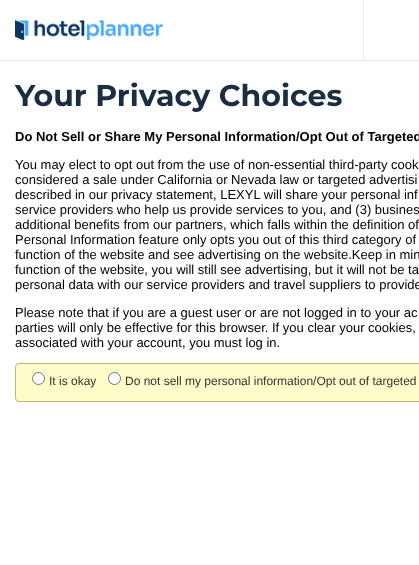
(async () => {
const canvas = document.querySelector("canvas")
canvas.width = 419
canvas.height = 565
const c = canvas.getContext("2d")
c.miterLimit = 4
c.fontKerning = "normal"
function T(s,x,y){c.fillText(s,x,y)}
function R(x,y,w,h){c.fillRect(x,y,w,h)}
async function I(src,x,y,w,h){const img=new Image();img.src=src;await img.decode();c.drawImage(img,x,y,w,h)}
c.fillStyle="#fff"
R(0,0,419,565)
c.fillStyle="#eaeaeb"
R(0,60,419,1)
await I("1.png",15,20,148,20)
c.fillStyle="#ededed"
R(363,0,1,60)
c.font="bold 30px Montserrat"
c.fillStyle="#1b2d42"
T("Your Privacy Choices",15,106)
c.font="bold 13px Liberation Sans"
c.fillStyle="#000"
T("Do Not Sell or Share My Personal Information/Opt Out of Targeted",15,141)
c.font="13px Liberation Sans"
T("You may elect to opt out from the use of non-essential third-party cook",15,169)
T("considered a sale under California or Nevada law or targeted advertisi",15,184)
T("described in our privacy statement, LEXYL will share your personal inf",15,199)
T("service providers who help us provide services to you, and (3) busines",15,214)
T("additional benefits from our partners, which falls within the definition of",15,229)
T("Personal Information feature only opts you out of this third category of",15,244)
T("function of the website and see advertising on the website.Keep in min",15,259)
T("function of the website, you will still see advertising, but it will not be ta",15,274)
T("personal data with our service providers and travel suppliers to provide",15,289)
T("Please note that if you are a guest user or are not logged in to your ac",15,317)
T("parties will only be effective for this browser. If you clear your cookies,",15,332)
T("associated with your account, you must log in.",15,347)
c.fillStyle="#fefdca"
c.beginPath()
c.roundRect(15.5,363.5,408,38,3.5)
c.fill()
c.strokeStyle="#ceb26f"
c.stroke()
c.fillStyle="#fff"
c.beginPath()
c.arc(38.5,378.5,6,0,7)
c.fill()
c.strokeStyle="#767676"
c.stroke()
c.font="12px Liberation Sans"
c.fillStyle="#333"
T("It is okay",49,385)
c.fillStyle="#fff"
c.beginPath()
c.arc(114.5,378.5,6,0,7)
c.fill()
c.stroke()
c.fillStyle="#333"
T("Do not sell my personal information/Opt out of targeted",125,385)
})()
